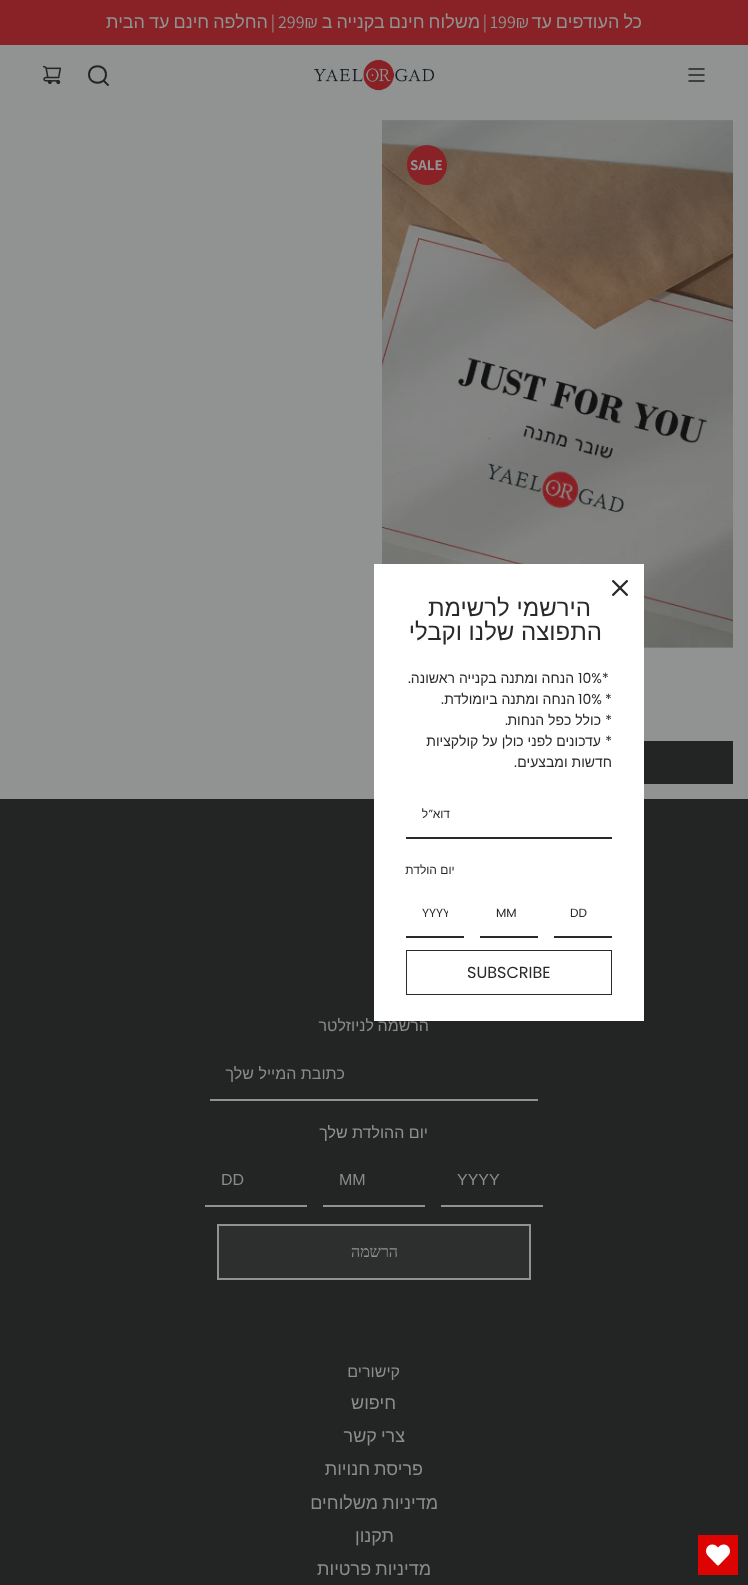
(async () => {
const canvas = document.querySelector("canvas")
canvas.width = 748
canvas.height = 1585
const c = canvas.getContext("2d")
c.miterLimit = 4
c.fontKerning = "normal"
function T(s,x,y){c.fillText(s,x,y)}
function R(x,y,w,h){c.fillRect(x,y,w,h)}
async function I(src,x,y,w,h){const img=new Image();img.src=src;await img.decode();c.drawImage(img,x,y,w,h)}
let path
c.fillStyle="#919292"
R(0,0,748,1585)
c.fillStyle="#882226"
R(0,0,748,45)
c.wordSpacing="-1px"
c.direction="rtl"
c.font="18px Liberation Sans"
c.fillStyle="#919292"
T("כל העודפים עד",642,28)
c.wordSpacing="0px"
c.direction="ltr"
c.font="18px Assistant"
T("199₪",490,28)
c.direction="rtl"
T("|",487,28)
c.wordSpacing="-1px"
c.font="18px Liberation Sans"
T("משלוח חינם בקנייה ב",480,28)
c.wordSpacing="0px"
c.direction="ltr"
c.font="18px Assistant"
T("299₪",278,28)
c.direction="rtl"
T("|",275,28)
c.wordSpacing="-1px"
c.font="18px Liberation Sans"
T("החלפה חינם עד הבית",268,28)
path = new Path2D("M689 69h15m-15 6h15m-15 6h15")
c.strokeStyle="#232424"
c.lineWidth=1.5
c.lineCap="round"
c.lineJoin="round"
c.stroke(path)
await I("1.png",314,59,120,32)
path = new Path2D("M103.5 80.5l4.5 4.5m-19-10.5c0 11 17 11 17 0c0-11-17-11-17 0z")
c.lineWidth=1.9
c.stroke(path)
await I("2.png",42,65,20,20)
await I("3.png",382,120,351,528)
await I("4.png",382,120,351,528)
c.fillStyle="#882226"
c.beginPath()
c.arc(427,165,20,0,7)
c.fill()
c.wordSpacing="0px"
c.direction="ltr"
c.font="bold 15px Assistant"
c.fillStyle="#919292"
T("SALE",410,170)
c.fillStyle="#232424"
R(644,741,89,43)
R(0,799,748,786)
c.wordSpacing="-1px"
c.direction="rtl"
c.font="16px Liberation Sans"
c.fillStyle="#8b8c8c"
T("הרשמה לניוזלטר",429,1031)
c.fillStyle="#fff"
R(374,564,270,457)
await I("5.png",612,580,16,16)
c.wordSpacing="0px"
c.font="24px Liberation Sans"
c.fillStyle="#292929"
T("הירשמי לרשימת",591,616)
T("התפוצה שלנו וקבלי",602,640)
c.direction="ltr"
c.font="14px Poppins"
T("10%*",578,683)
c.direction="rtl"
c.font="14px Liberation Sans"
T("הנחה ומתנה בקנייה ראשונה",574,683)
c.font="14px Poppins"
T(".",411,683)
c.direction="ltr"
T("*",605,704)
T("10%",578,704)
c.direction="rtl"
c.font="14px Liberation Sans"
T("הנחה ומתנה ביומולדת",575,704)
c.font="14px Poppins"
T(".",444,704)
T("*",612,725)
c.font="14px Liberation Sans"
T("כולל כפל הנחות",601,725)
c.font="14px Poppins"
T(".",508,725)
T("*",612,746)
c.font="14px Liberation Sans"
T("עדכונים לפני כולן על קולקציות",601,746)
T("חדשות ומבצעים",612,767)
c.font="14px Poppins"
T(".",517,767)
R(406,837,206,2)
c.font="12px Liberation Sans"
T("דוא",450,818)
c.font="12px Poppins"
T("”",433,818)
c.font="12px Liberation Sans"
T("ל",428,818)
T(" יום הולדת",458,874)
R(554,936,58,2)
c.direction="ltr"
c.font="12px Poppins"
T("DD",570,917)
R(480,936,58,2)
T("MM",496,917)
R(406,936,58,2)
c.save()
c.beginPath()
c.rect(422,904,26,18)
c.clip()
T("YYYY",422,917)
c.restore()
c.strokeStyle="#292929"
c.lineWidth=1
c.lineJoin="miter"
c.strokeRect(406.5,950.5,205,44)
c.font="16px Poppins"
T("SUBSCRIBE",467,978)
c.fillStyle="#de0303"
R(698,1535,40,40)
await I("6.png",706,1544,24,22)
c.fillStyle="#919292"
R(210,1099,328,2)
c.direction="rtl"
c.font="16px Liberation Sans"
c.fillStyle="#8b8c8c"
T("כתובת המייל שלך",345,1079)
c.fillStyle="#919292"
T("יום ההולדת שלך",428,1138)
R(441,1205,102,2)
c.direction="ltr"
c.fillStyle="#8b8c8c"
T("YYYY",457,1185)
c.fillStyle="#919292"
R(323,1205,102,2)
c.fillStyle="#8b8c8c"
T("MM",339,1185)
c.fillStyle="#919292"
R(205,1205,102,2)
c.fillStyle="#8b8c8c"
T("DD",221,1185)
c.fillStyle="#2d2e2e"
c.beginPath()
c.rect(218,1225,312,54)
c.fill()
c.strokeStyle="#919292"
c.lineWidth=2
c.stroke()
c.direction="rtl"
c.font="16px Liberation Serif"
c.fillStyle="#919292"
T("הרשמה",398,1257)
c.font="16px Liberation Sans"
c.fillStyle="#8b8c8c"
T("קישורים",400,1377)
c.font="18px Liberation Sans"
T("חיפוש",396,1409)
c.wordSpacing="-1px"
T("צרי קשר",405,1442)
T("פריסת חנויות",423,1475)
T("מדיניות משלוחים",438,1509)
c.wordSpacing="0px"
T("תקנון",394,1542)
c.wordSpacing="-1px"
T("מדיניות פרטיות",431,1575)
})()
